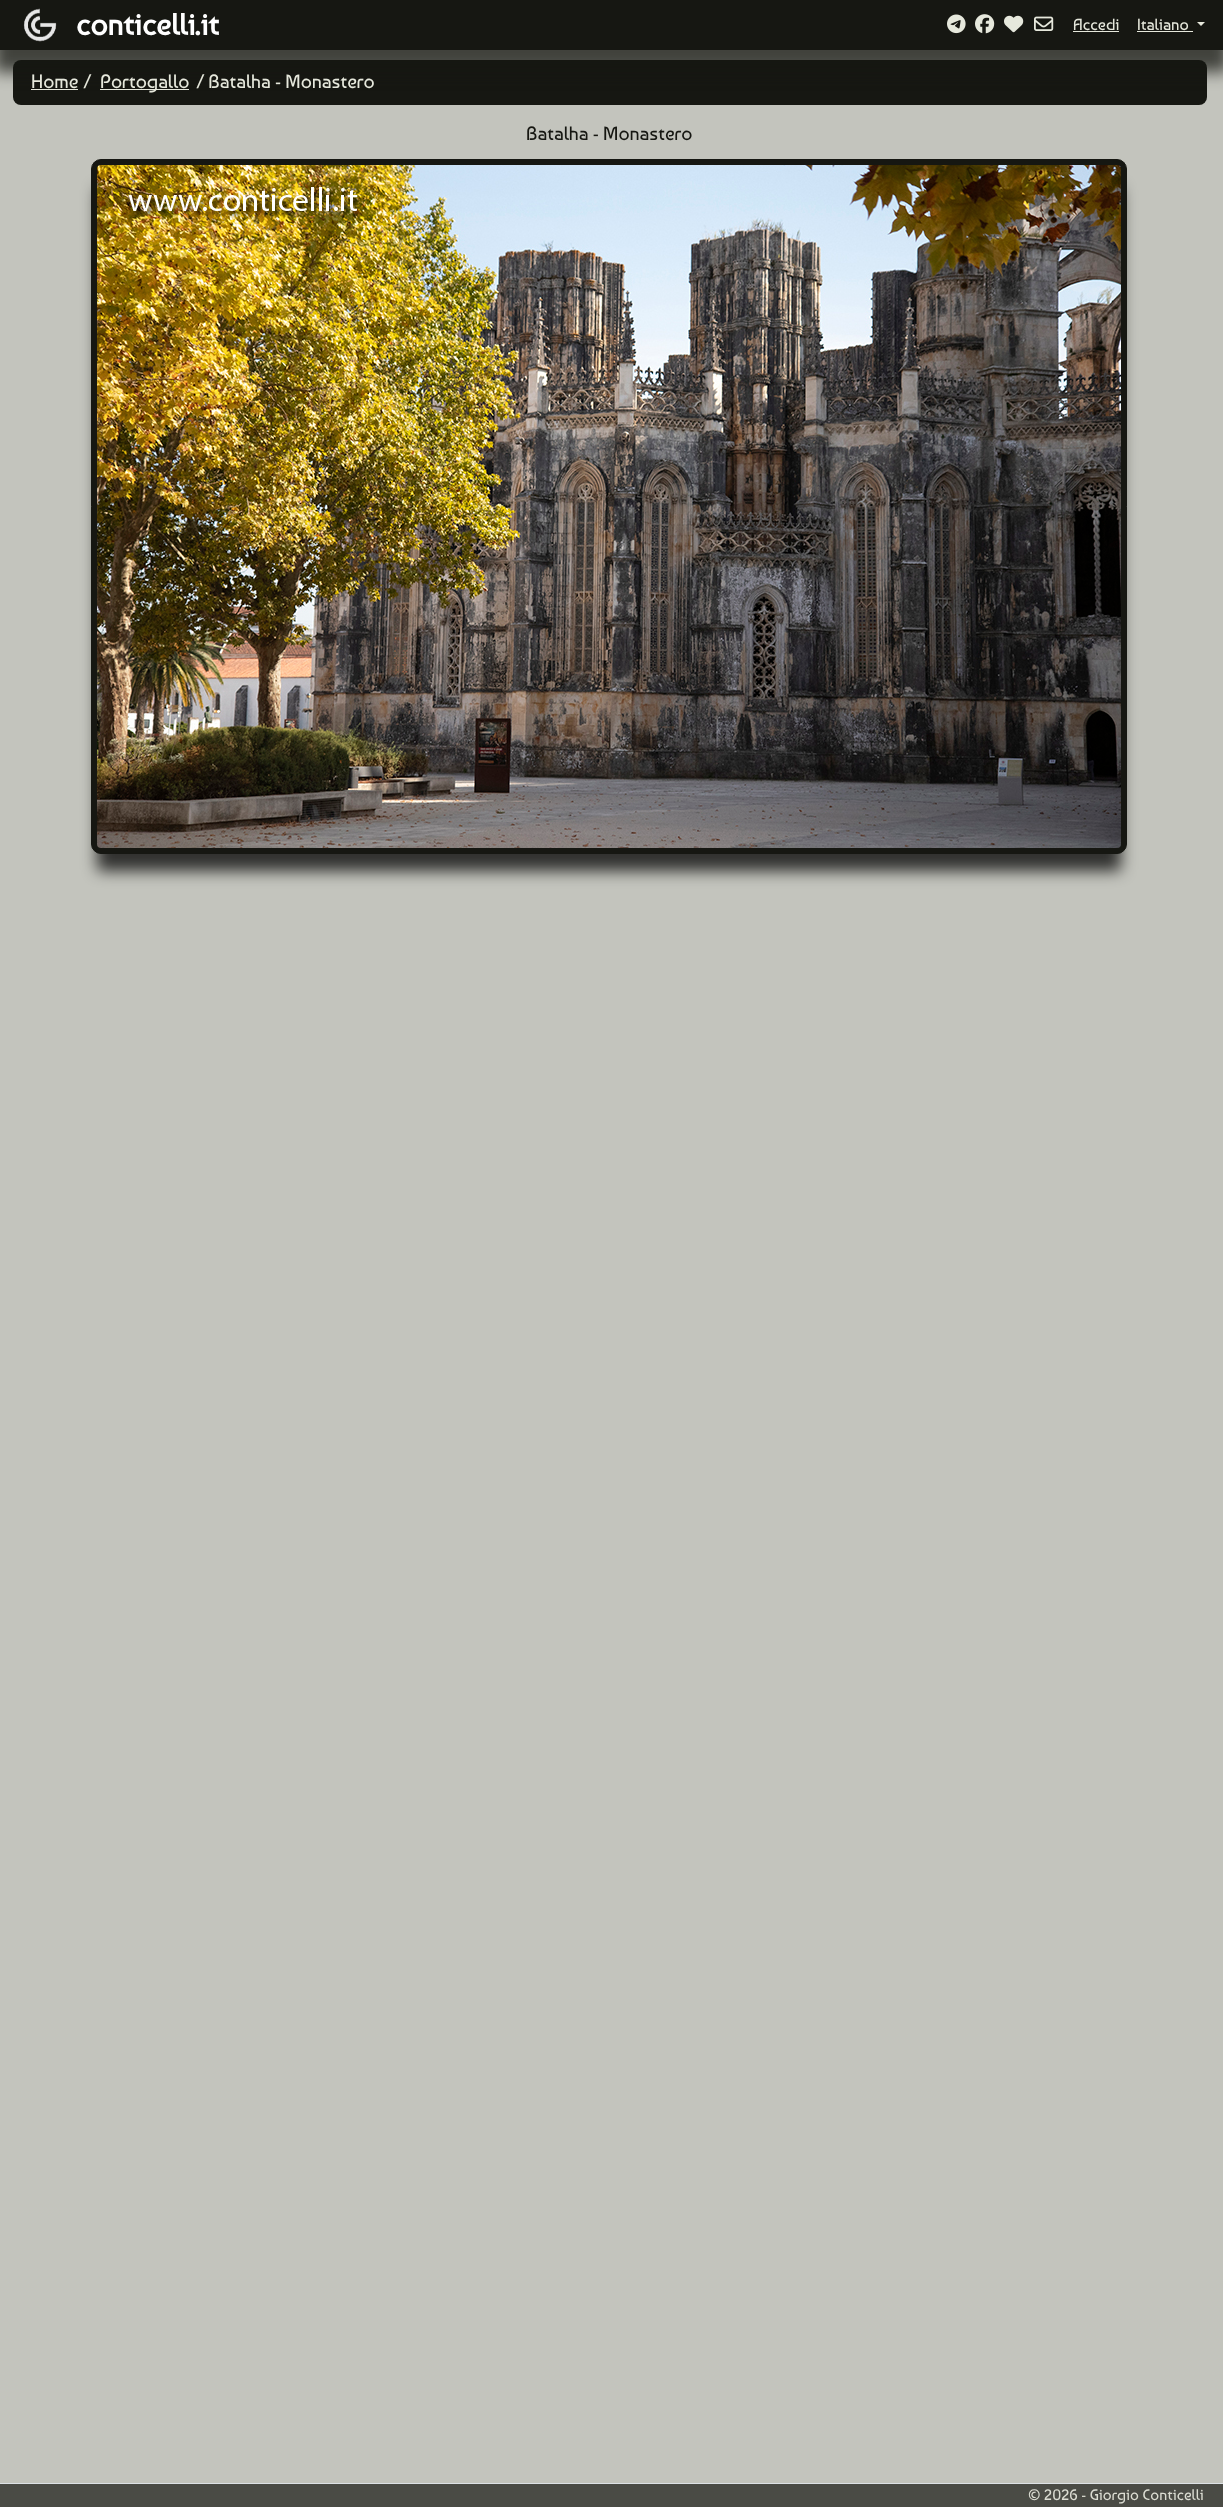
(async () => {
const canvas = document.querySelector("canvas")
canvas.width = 1223
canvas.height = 2507
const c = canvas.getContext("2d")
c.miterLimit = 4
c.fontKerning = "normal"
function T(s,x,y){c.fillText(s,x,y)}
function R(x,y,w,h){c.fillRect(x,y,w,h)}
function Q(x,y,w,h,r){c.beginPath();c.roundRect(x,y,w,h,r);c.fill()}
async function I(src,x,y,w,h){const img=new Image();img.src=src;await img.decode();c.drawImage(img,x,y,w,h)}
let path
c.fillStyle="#c3c4bd"
R(0,0,1223,2507)
c.fillStyle="#161712"
Q(13,60,1194,45,8)
c.fillStyle="#e6e8dc"
R(31,89,47,1)
R(100,89,89,1)
c.fillStyle="#161712bf"
c.filter="blur(8px)"
c.beginPath()
c.rect(-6,10,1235,62)
c.fill()
c.filter="none"
c.fillStyle="#161712"
R(0,0,1223,50)
await I("1.png",23,8,34,34)
c.font="bold 30px Baumans"
c.fillStyle="#fff"
T("conticelli.it",76,35)
await I("2.png",947,14,19,20)
await I("3.png",975,14,20,20)
await I("4.png",1004,15,20,18)
await I("5.png",1034,16,20,15)
c.font="16px Baumans"
c.fillStyle="#e6e8dc"
T("Accedi",1073,30)
R(1073,31,46,1)
T("Italiano",1137,30)
R(1137,31,56,1)
path = new Path2D("M1197 22h8l-4 4z")
c.fill(path)
c.font="19.25px Baumans"
T("Home",31,88)
T("/",84,88)
T("Portogallo",100,88)
T("/ Batalha - Monastero",197,88)
c.fillStyle="#161712"
T("Batalha - Monastero",526,140)
c.fillStyle="#000000bf"
c.filter="blur(7.5px)"
c.beginPath()
c.roundRect(97,188,1024,683,4)
c.fill()
c.filter="none"
c.fillStyle="#161712"
c.beginPath()
c.roundRect(91.5,159.5,1035,694,9.5)
c.fill()
c.strokeStyle="#161712"
c.stroke()
await I("6.png",97,165,1024,683)
c.fillStyle="#dee2e6"
R(0,2483,1223,1)
c.fillStyle="#4a4b45"
R(0,2484,1223,23)
c.font="15.25px Baumans"
c.fillStyle="#dcddd3"
T("© 2026 - Giorgio Conticelli",1028,2500)
})()
